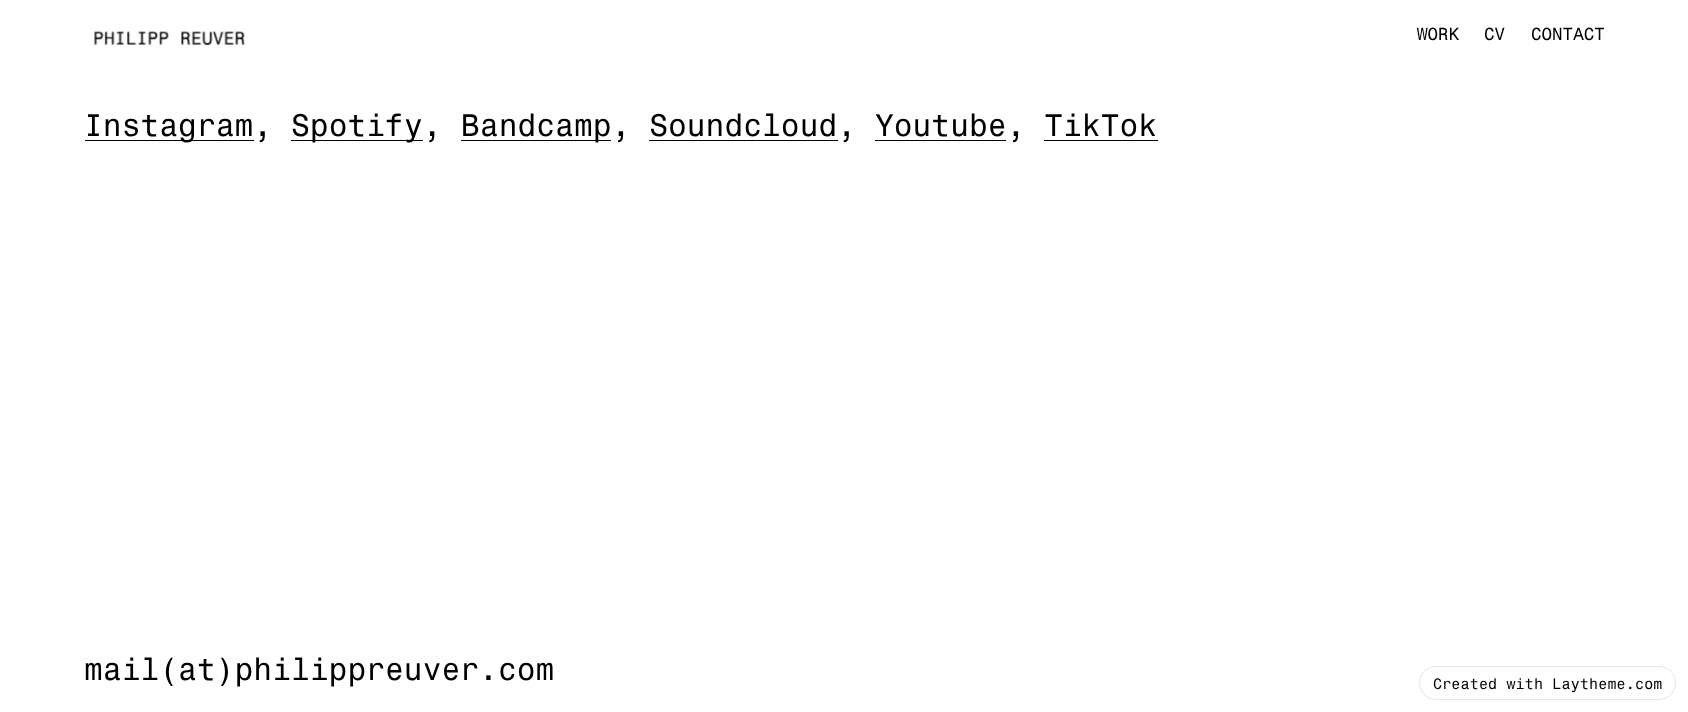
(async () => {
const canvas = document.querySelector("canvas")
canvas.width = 1688
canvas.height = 712
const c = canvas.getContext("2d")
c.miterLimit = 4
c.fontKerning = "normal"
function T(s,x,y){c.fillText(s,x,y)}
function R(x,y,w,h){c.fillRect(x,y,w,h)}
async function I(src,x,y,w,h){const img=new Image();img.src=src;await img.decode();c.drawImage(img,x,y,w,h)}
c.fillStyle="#fff"
R(0,0,1688,712)
await I("1.png",94,31,151,15)
c.font="17.5px 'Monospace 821'"
c.fillStyle="#000"
T("WORK",1417,40)
T("CV",1484,40)
T("CONTACT",1531,40)
R(85,140,169,1)
c.font="31.25px 'Monospace 821'"
T("Instagram,",84,136)
R(291,140,132,1)
T("Spotify,",291,136)
R(461,140,150,1)
T("Bandcamp, Soundcloud, Youtube, TikTok",461,136)
R(649,140,189,1)
R(875,140,131,1)
R(1044,140,114,1)
T("mail(at)philippreuver.com",84,680)
c.beginPath()
c.roundRect(1419.5,666.5,256,33,16.5)
c.strokeStyle="#e6e6e6"
c.stroke()
c.letterSpacing="0.15px"
c.font="15px 'Monospace 821'"
T("Created with Laytheme.com",1433,689)
})()
